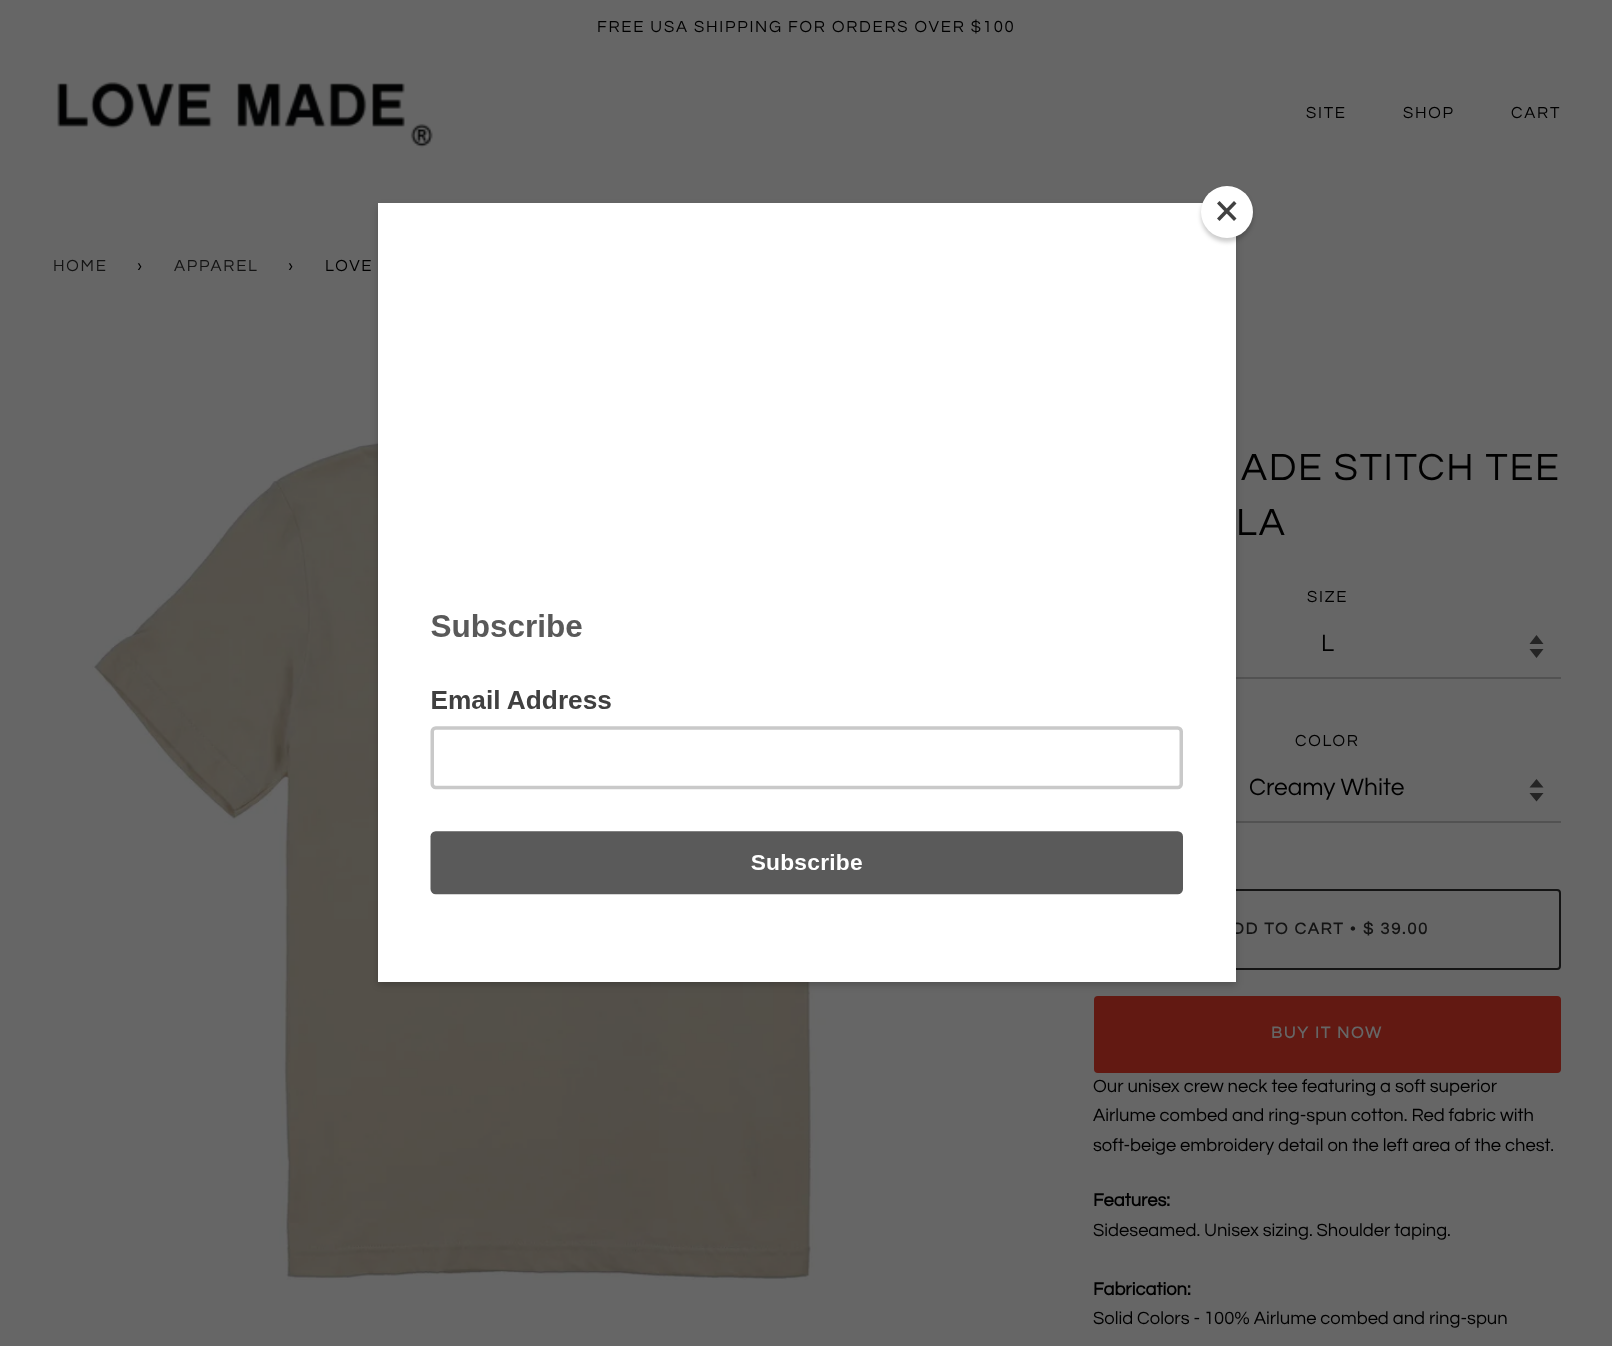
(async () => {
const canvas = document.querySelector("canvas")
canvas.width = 1612
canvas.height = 1346
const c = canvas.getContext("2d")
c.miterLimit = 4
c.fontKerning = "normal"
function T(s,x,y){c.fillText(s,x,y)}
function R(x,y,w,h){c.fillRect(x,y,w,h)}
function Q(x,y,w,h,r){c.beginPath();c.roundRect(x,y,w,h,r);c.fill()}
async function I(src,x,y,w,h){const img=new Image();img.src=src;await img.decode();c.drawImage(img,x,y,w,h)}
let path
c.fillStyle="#666"
R(0,0,1612,1346)
c.letterSpacing="1.75px"
c.font="16.65px Questrial"
c.fillStyle="#000"
T("FREE USA SHIPPING FOR ORDERS OVER $100",597,32)
await I("1.png",57,82,376,66)
T("SITE",1306,118)
T("SHOP",1403,118)
T("CART",1511,118)
await I("3.png",92,421,918,859)
c.fillStyle="#525252"
R(1236,677,325,2)
R(1236,821,325,2)
c.beginPath()
c.roundRect(1095,890,465,79,3)
c.strokeStyle="#141414"
c.lineWidth=2
c.stroke()
c.fillStyle="#621912"
Q(1094,996,467,77,4)
c.fillStyle="#00000033"
c.filter="blur(3.5px)"
c.beginPath()
c.rect(378,207,858,778)
c.fill()
c.filter="none"
c.font="bold 16.65px Questrial"
c.fillStyle="#141414"
T("DD TO CART",1232,934)
await I("2.png",378,203,858,779)
c.fillStyle="#00000033"
c.filter="blur(2px)"
c.beginPath()
c.roundRect(1201,189,52,53,26)
c.fill()
c.filter="none"
c.fillStyle="#fff"
c.beginPath()
c.arc(1227,212,26,0,7)
c.fill()
c.fillStyle="#414141"
path = new Path2D("M1234 201l2.5 2.5l-17 17.5l-2.5-2.5z")
c.fill(path)
path = new Path2D("M1217 203.5l2.5-2.5l17 17.5l-2.5 2.5z")
c.fill(path)
c.font="16.65px Questrial"
c.fillStyle="#141414"
T("HOME",53,271)
c.fillStyle="#000"
T("›",137,271)
c.fillStyle="#141414"
T("APPAREL",174,271)
c.fillStyle="#000"
T("›",288,271)
T("LOVE",325,271)
c.font="39.25px Questrial"
T("ADE STITCH TEE",1241,480)
T("LA",1236,535)
c.font="16.65px Questrial"
T("SIZE",1307,602)
c.fillStyle="#252525"
path = new Path2D("M1529.5 649l7 9l7-9zm7-14l-7 9h14z")
c.fill(path)
c.letterSpacing="0px"
c.font="24.5px Questrial"
c.fillStyle="#000"
T("L",1321,651)
c.letterSpacing="1.75px"
c.font="16.65px Questrial"
T("COLOR",1295,746)
c.fillStyle="#252525"
path = new Path2D("M1529.5 793l7 8.5l7-8.5zm7-14l-7 8.5h14z")
c.fill(path)
c.letterSpacing="0px"
c.font="24.5px Questrial"
c.fillStyle="#000"
T("Creamy White",1249,795)
c.letterSpacing="1.75px"
c.font="bold 16.65px Liberation Serif"
c.fillStyle="#141414"
T("•",1350,934)
c.font="bold 16.65px Questrial"
T("$ 39.00",1363,934)
c.fillStyle="#666"
T("BUY IT NOW",1271,1038)
c.letterSpacing="0px"
c.font="18.4px Questrial"
c.fillStyle="#000"
T("Our unisex crew neck tee featuring a soft superior",1093,1092)
T("Airlume combed and ring-spun cotton. Red fabric with",1093,1121)
T("soft-beige embroidery detail on the left area of the chest.",1093,1151)
c.font="bold 18.4px Questrial"
T("Features:",1093,1206)
c.font="18.4px Questrial"
T("Sideseamed. Unisex sizing. Shoulder taping.",1093,1236)
c.font="bold 18.4px Questrial"
T("Fabrication:",1093,1295)
c.font="18.4px Questrial"
T("Solid Colors - 100% Airlume combed and ring-spun",1093,1324)
})()
